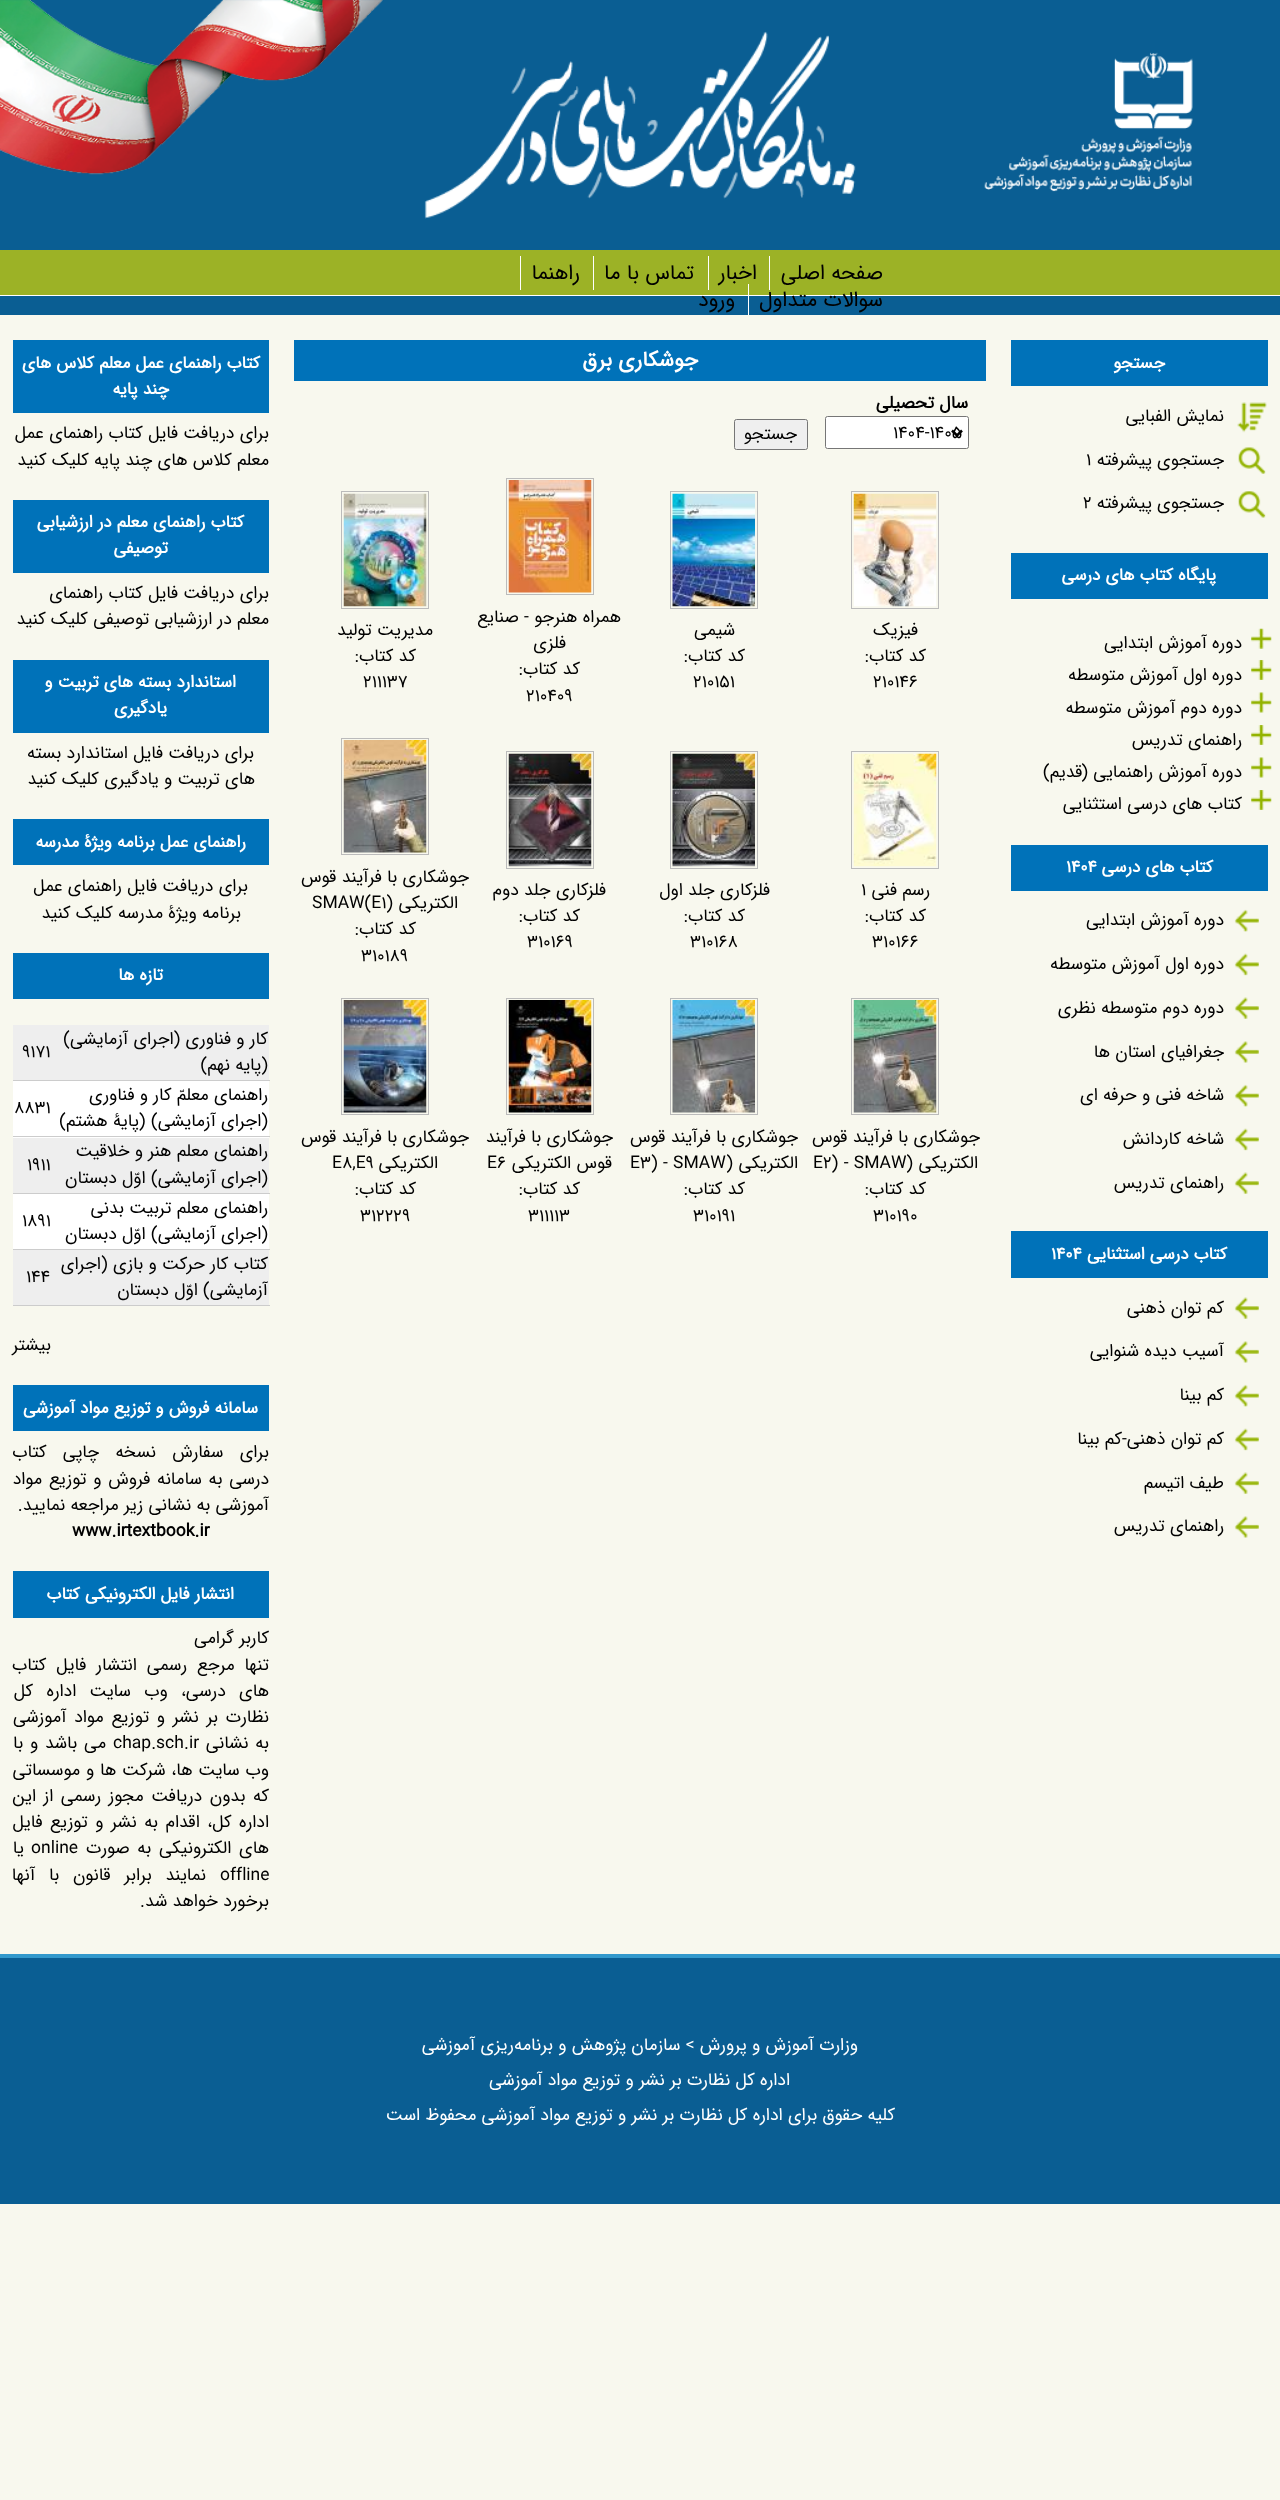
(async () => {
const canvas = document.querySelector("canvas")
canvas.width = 1280
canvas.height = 2500
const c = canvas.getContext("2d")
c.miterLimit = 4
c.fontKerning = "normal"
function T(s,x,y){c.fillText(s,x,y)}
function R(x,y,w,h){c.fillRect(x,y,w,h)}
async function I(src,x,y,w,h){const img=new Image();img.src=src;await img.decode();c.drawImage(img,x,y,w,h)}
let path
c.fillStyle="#f8f8ee"
R(0,0,1280,2500)
c.fillStyle="#0a5e93"
R(0,0,1280,315)
await I("1.png",984,52,209,140)
await I("2.png",424,31,432,188)
await I("3.png",0,0,383,175)
c.fillStyle="#9cb226"
R(0,250,1280,45)
c.fillStyle="#fff"
R(0,295,1280,1)
c.direction="rtl"
c.font="21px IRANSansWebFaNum"
c.fillStyle="#000"
T("صفحه اصلی",883,279)
c.fillStyle="#fff"
R(769,256,1,34)
c.fillStyle="#000"
T("اخبار",757,279)
c.fillStyle="#fff"
R(708,256,1,34)
c.fillStyle="#000"
T("تماس با ما",694,279)
c.fillStyle="#fff"
R(593,256,1,34)
c.fillStyle="#000"
T("راهنما",580,279)
c.fillStyle="#fff"
R(520,256,1,34)
c.fillStyle="#000"
T("سوالات متداول",883,306)
c.fillStyle="#fff"
R(748,284,1,34)
c.fillStyle="#000"
T("ورود",735,306)
c.fillStyle="#f9f8ee"
R(748,315,1,3)
c.fillStyle="#0072b9"
R(294,340,692,41)
c.font="bold 21px IRANSansWebFaNum"
c.fillStyle="#fff"
T("جوشکاری برق",698,366)
c.font="bold 17.5px IRANSansWebFaNum"
c.fillStyle="#000"
T("سال تحصیلی",968,408)
c.fillStyle="#fff"
c.beginPath()
c.roundRect(825.5,416.5,143,32,2)
c.fill()
c.strokeStyle="#767676"
c.stroke()
path = new Path2D("M952 430.5l5 5l5-5")
c.strokeStyle="#000"
c.lineWidth=2.5
c.stroke(path)
c.direction="ltr"
c.font="17.5px IRANSansWebFaNum"
c.fillStyle="#000"
T("1404-1405",893,438)
c.fillStyle="#efefef"
c.beginPath()
c.roundRect(734.5,419.5,73,30,2)
c.fill()
c.strokeStyle="#767676"
c.lineWidth=1
c.stroke()
c.direction="rtl"
c.fillStyle="#000"
T("جستجو",797,439)
c.strokeStyle="#bbb"
c.strokeRect(851.5,491.5,87,117)
await I("4.png",853,493,84,114)
T("فیزیک",918,635)
T("کد کتاب:",926,661)
c.direction="ltr"
T("210146",873,687)
c.strokeRect(670.5,491.5,87,117)
await I("5.png",672,493,83,114)
c.direction="rtl"
T("شیمی",735,635)
T("کد کتاب:",745,661)
c.direction="ltr"
T("210151",693,687)
c.strokeRect(506.5,478.5,87,116)
await I("6.png",508,480,84,113)
c.direction="rtl"
T("همراه هنرجو - صنایع",621,622)
T("فلزی",566,648)
T("کد کتاب:",580,674)
c.direction="ltr"
T("210409",526,701)
c.strokeRect(341.5,491.5,87,117)
await I("7.png",343,493,84,114)
c.direction="rtl"
T("مدیریت تولید",433,635)
T("کد کتاب:",416,661)
c.direction="ltr"
T("211137",363,687)
c.strokeRect(851.5,751.5,87,117)
await I("8.png",853,753,84,114)
c.direction="rtl"
T("رسم فنی",930,895)
c.direction="ltr"
T("1",861,895)
c.direction="rtl"
T("کد کتاب:",926,921)
c.direction="ltr"
T("310166",872,947)
c.strokeRect(670.5,751.5,87,117)
await I("9.png",672,753,83,114)
c.direction="rtl"
T("فلزکاری جلد اول",770,895)
T("کد کتاب:",745,921)
c.direction="ltr"
T("310168",690,947)
c.strokeRect(506.5,751.5,87,117)
await I("10.png",508,753,84,114)
c.direction="rtl"
T("فلزکاری جلد دوم",606,895)
T("کد کتاب:",580,921)
c.direction="ltr"
T("310169",527,947)
c.strokeRect(341.5,738.5,87,116)
await I("11.png",343,740,84,113)
c.direction="rtl"
T("جوشکاری با فرآیند قوس",469,882)
T("الکتریکی",458,908)
c.direction="ltr"
T("SMAW(E1)",312,908)
c.direction="rtl"
T("کد کتاب:",416,934)
c.direction="ltr"
T("310189",361,961)
c.strokeRect(851.5,998.5,87,116)
await I("12.png",853,1000,84,113)
c.direction="rtl"
T("جوشکاری با فرآیند قوس",980,1142)
T("الکتریکی (",978,1168)
c.direction="ltr"
T("E2) - SMAW",813,1168)
c.direction="rtl"
T("کد کتاب:",926,1194)
c.direction="ltr"
T("310190",873,1221)
c.strokeRect(670.5,998.5,87,116)
await I("13.png",672,1000,83,113)
c.direction="rtl"
T("جوشکاری با فرآیند قوس",798,1142)
T("الکتریکی (",798,1168)
c.direction="ltr"
T("E3) - SMAW",630,1168)
c.direction="rtl"
T("کد کتاب:",745,1194)
c.direction="ltr"
T("310191",693,1221)
c.strokeRect(506.5,998.5,87,116)
await I("14.png",508,1000,84,113)
c.direction="rtl"
T("جوشکاری با فرآیند",613,1142)
T("قوس الکتریکی",612,1168)
c.direction="ltr"
T("E6",487,1168)
c.direction="rtl"
T("کد کتاب:",580,1194)
c.direction="ltr"
T("311113",528,1221)
c.strokeRect(341.5,998.5,87,116)
await I("15.png",343,1000,84,113)
c.direction="rtl"
T("جوشکاری با فرآیند قوس",469,1142)
T("الکتریکی",438,1168)
c.direction="ltr"
T("E8,E9",332,1168)
c.direction="rtl"
T("کد کتاب:",416,1194)
c.direction="ltr"
T("312229",360,1221)
c.fillStyle="#0072b9"
R(1011,340,257,46)
c.direction="rtl"
c.font="bold 17px IRANSansWebFaNum"
c.fillStyle="#fff"
T("جستجو",1165,368)
await I("16.png",1237,402,30,31)
c.font="17.5px IRANSansWebFaNum"
c.fillStyle="#000"
T("نمایش الفبایی",1224,421)
await I("17.png",1238,447,28,27)
T("جستجوی پیشرفته",1224,465)
c.direction="ltr"
T("1",1086,465)
await I("18.png",1238,491,28,27)
c.direction="rtl"
T("جستجوی پیشرفته",1224,508)
c.direction="ltr"
T("2",1083,508)
c.fillStyle="#0072b9"
R(1011,553,257,46)
c.direction="rtl"
c.font="bold 17px IRANSansWebFaNum"
c.fillStyle="#fff"
T("پایگاه کتاب های درسی",1216,580)
await I("19.png",1251,628,21,21)
c.font="17.5px IRANSansWebFaNum"
c.fillStyle="#000"
T("دوره آموزش ابتدایی",1242,648)
await I("20.png",1251,660,21,20)
T("دوره اول آموزش متوسطه",1242,680)
await I("21.png",1251,692,21,21)
T("دوره دوم آموزش متوسطه",1242,713)
await I("20.png",1251,725,21,20)
T("راهنمای تدریس",1242,745)
await I("21.png",1251,757,21,21)
T("دوره آموزش راهنمایی (قدیم)",1242,777)
await I("20.png",1251,790,21,20)
T("کتاب های درسی استثنایی",1242,809)
c.fillStyle="#0072b9"
R(1011,845,257,46)
c.font="bold 17px IRANSansWebFaNum"
c.fillStyle="#fff"
T("کتاب های درسی",1213,872)
c.direction="ltr"
T("1404",1066,872)
await I("22.png",1234,909,25,23)
c.direction="rtl"
c.font="17.5px IRANSansWebFaNum"
c.fillStyle="#000"
T("دوره آموزش ابتدایی",1224,925)
await I("23.png",1234,953,25,23)
T("دوره اول آموزش متوسطه",1224,969)
await I("24.png",1234,997,25,22)
T("دوره دوم متوسطه نظری",1224,1013)
await I("25.png",1234,1041,25,22)
T("جغرافیای استان ها",1224,1057)
await I("22.png",1234,1084,25,23)
T("شاخه فنی و حرفه ای",1224,1100)
await I("23.png",1234,1128,25,23)
T("شاخه کاردانش",1224,1144)
await I("26.png",1234,1172,25,22)
T("راهنمای تدریس",1224,1188)
c.fillStyle="#0072b9"
R(1011,1231,257,47)
c.font="bold 17px IRANSansWebFaNum"
c.fillStyle="#fff"
T("کتاب درسی استثنایی",1227,1259)
c.direction="ltr"
T("1404",1051,1259)
await I("24.png",1234,1297,25,22)
c.direction="rtl"
c.font="17.5px IRANSansWebFaNum"
c.fillStyle="#000"
T("کم توان ذهنی",1224,1313)
await I("25.png",1234,1341,25,22)
T("آسیب دیده شنوایی",1224,1356)
await I("22.png",1234,1384,25,23)
T("کم بینا",1224,1400)
await I("23.png",1234,1428,25,23)
T("کم توان ذهنی-کم بینا",1224,1444)
await I("24.png",1234,1472,25,22)
T("طیف اتیسم",1224,1488)
await I("25.png",1234,1516,25,22)
T("راهنمای تدریس",1224,1531)
c.fillStyle="#0072b9"
R(13,340,256,73)
c.font="bold 17px IRANSansWebFaNum"
c.fillStyle="#fff"
T("کتاب راهنمای عمل معلم کلاس های",260,368)
T("چند پایه",169,394)
c.font="17.5px IRANSansWebFaNum"
c.fillStyle="#000"
T("برای دریافت فایل کتاب راهنمای عمل",269,438)
T("معلم کلاس های چند پایه کلیک کنید",269,465)
c.fillStyle="#0072b9"
R(13,500,256,73)
c.font="bold 17px IRANSansWebFaNum"
c.fillStyle="#fff"
T("کتاب راهنمای معلم در ارزشیابی",244,527)
T("توصیفی",168,553)
c.font="17.5px IRANSansWebFaNum"
c.fillStyle="#000"
T("برای دریافت فایل کتاب راهنمای",269,598)
T("معلم در ارزشیابی توصیفی کلیک کنید",269,624)
c.fillStyle="#0072b9"
R(13,660,256,73)
c.font="bold 17px IRANSansWebFaNum"
c.fillStyle="#fff"
T("استاندارد بسته های تربیت و",236,687)
T("یادگیری",167,713)
c.font="17.5px IRANSansWebFaNum"
c.fillStyle="#000"
T("برای دریافت فایل استاندارد بسته",254,758)
T("های تربیت و یادگیری کلیک کنید",255,784)
c.fillStyle="#0072b9"
R(13,819,256,46)
c.font="bold 17px IRANSansWebFaNum"
c.fillStyle="#fff"
T("راهنمای عمل برنامه ویژۀ مدرسه",246,847)
c.font="17.5px IRANSansWebFaNum"
c.fillStyle="#000"
T("برای دریافت فایل راهنمای عمل",248,891)
T("برنامه ویژۀ مدرسه کلیک کنید",241,918)
c.fillStyle="#0072b9"
R(13,953,256,46)
c.font="bold 17px IRANSansWebFaNum"
c.fillStyle="#fff"
T("تازه ها",163,980)
c.fillStyle="#eee"
R(13,1025,256,55)
c.fillStyle="#ccc"
R(13,1080,257,1)
c.font="17.5px IRANSansWebFaNum"
c.fillStyle="#000"
T("کار و فناوری (اجرای آزمایشی)",268,1044)
T("(پایه نهم)",268,1070)
c.direction="ltr"
T("9171",22,1057)
c.fillStyle="#fff"
R(13,1081,256,57)
c.fillStyle="#ccc"
R(13,1136,257,1)
c.direction="rtl"
c.fillStyle="#000"
T("راهنمای معلمّ کار و فناوری",268,1100)
T("(اجرای آزمایشی) (پایۀ هشتم)",268,1126)
c.direction="ltr"
T("8831",14,1113)
c.fillStyle="#eee"
R(13,1138,256,55)
c.fillStyle="#ccc"
R(13,1193,257,1)
c.direction="rtl"
c.fillStyle="#000"
T("راهنمای معلم هنر و خلاقیت",268,1156)
T("(اجرای آزمایشی) اوّل دبستان",268,1183)
c.direction="ltr"
T("1911",27,1170)
c.fillStyle="#fff"
R(13,1194,256,55)
c.fillStyle="#ccc"
R(13,1249,257,1)
c.direction="rtl"
c.fillStyle="#000"
T("راهنمای معلم تربیت بدنی",268,1213)
T("(اجرای آزمایشی) اوّل دبستان",268,1239)
c.direction="ltr"
T("1891",22,1226)
c.fillStyle="#eee"
R(13,1250,256,55)
c.fillStyle="#ccc"
R(13,1305,257,1)
c.direction="rtl"
c.fillStyle="#000"
T("کتاب کار حرکت و بازی (اجرای",268,1269)
T("آزمایشی) اوّل دبستان",268,1295)
c.direction="ltr"
T("144",26,1282)
c.direction="rtl"
T("بیشتر",51,1350)
c.fillStyle="#0072b9"
R(13,1385,256,46)
c.font="bold 17px IRANSansWebFaNum"
c.fillStyle="#fff"
T("سامانه فروش و توزیع مواد آموزشی",258,1413)
c.wordSpacing="11px"
c.font="17.5px IRANSansWebFaNum"
c.fillStyle="#000"
T("برای سفارش نسخه چاپی کتاب",269,1457)
c.wordSpacing="1.5px"
T("درسی به سامانه فروش و توزیع مواد",269,1484)
c.wordSpacing="0px"
T("آموزشی به نشانی زیر مراجعه نمایید.",269,1510)
c.direction="ltr"
c.font="bold 17.5px IRANSansWebFaNum"
T("www.irtextbook.ir",72,1536)
c.fillStyle="#0072b9"
R(13,1571,256,47)
c.direction="rtl"
c.font="bold 17px IRANSansWebFaNum"
c.fillStyle="#fff"
T("انتشار فایل الکترونیکی کتاب",234,1599)
c.font="17.5px IRANSansWebFaNum"
c.fillStyle="#000"
T("کاربر گرامی",269,1643)
c.wordSpacing="4.75px"
T("تنها مرجع رسمی انتشار فایل کتاب",269,1670)
c.wordSpacing="8px"
T("های درسی، وب سایت اداره کل",269,1696)
c.wordSpacing="2.5px"
T("نظارت بر نشر و توزیع مواد آموزشی",269,1722)
c.wordSpacing="1.5px"
T("به نشانی",269,1748)
c.wordSpacing="0px"
c.direction="ltr"
T("chap.sch.ir",113,1748)
c.wordSpacing="1.5px"
c.direction="rtl"
T("می باشد و با",106,1748)
c.wordSpacing="0.5px"
T("وب سایت ها، شرکت ها و موسساتی",269,1775)
c.wordSpacing="2.25px"
T("که بدون دریافت مجوز رسمی از این",269,1801)
T("اداره کل، اقدام به نشر و توزیع فایل",269,1827)
c.wordSpacing="2.5px"
T("های الکترونیکی به صورت",269,1853)
c.wordSpacing="0px"
c.direction="ltr"
T("online",31,1853)
c.direction="rtl"
T("یا",24,1853)
c.direction="ltr"
T("offline",220,1880)
c.wordSpacing="8.5px"
c.direction="rtl"
T("نمایند برابر قانون با آنها",206,1880)
c.wordSpacing="0px"
T("برخورد خواهد شد.",269,1906)
c.fillStyle="#0a5e93"
R(0,1958,1280,246)
c.fillStyle="#39c"
R(0,1954,1280,4)
c.fillStyle="#fff"
T("وزارت آموزش و پرورش > سازمان پژوهش و برنامه‌ريزی آموزشی",858,2050)
T("اداره کل نظارت بر نشر و توزیع مواد آموزشی",790,2085)
T("کلیه حقوق برای اداره کل نظارت بر نشر و توزیع مواد آموزشی محفوظ است",895,2120)
})()
